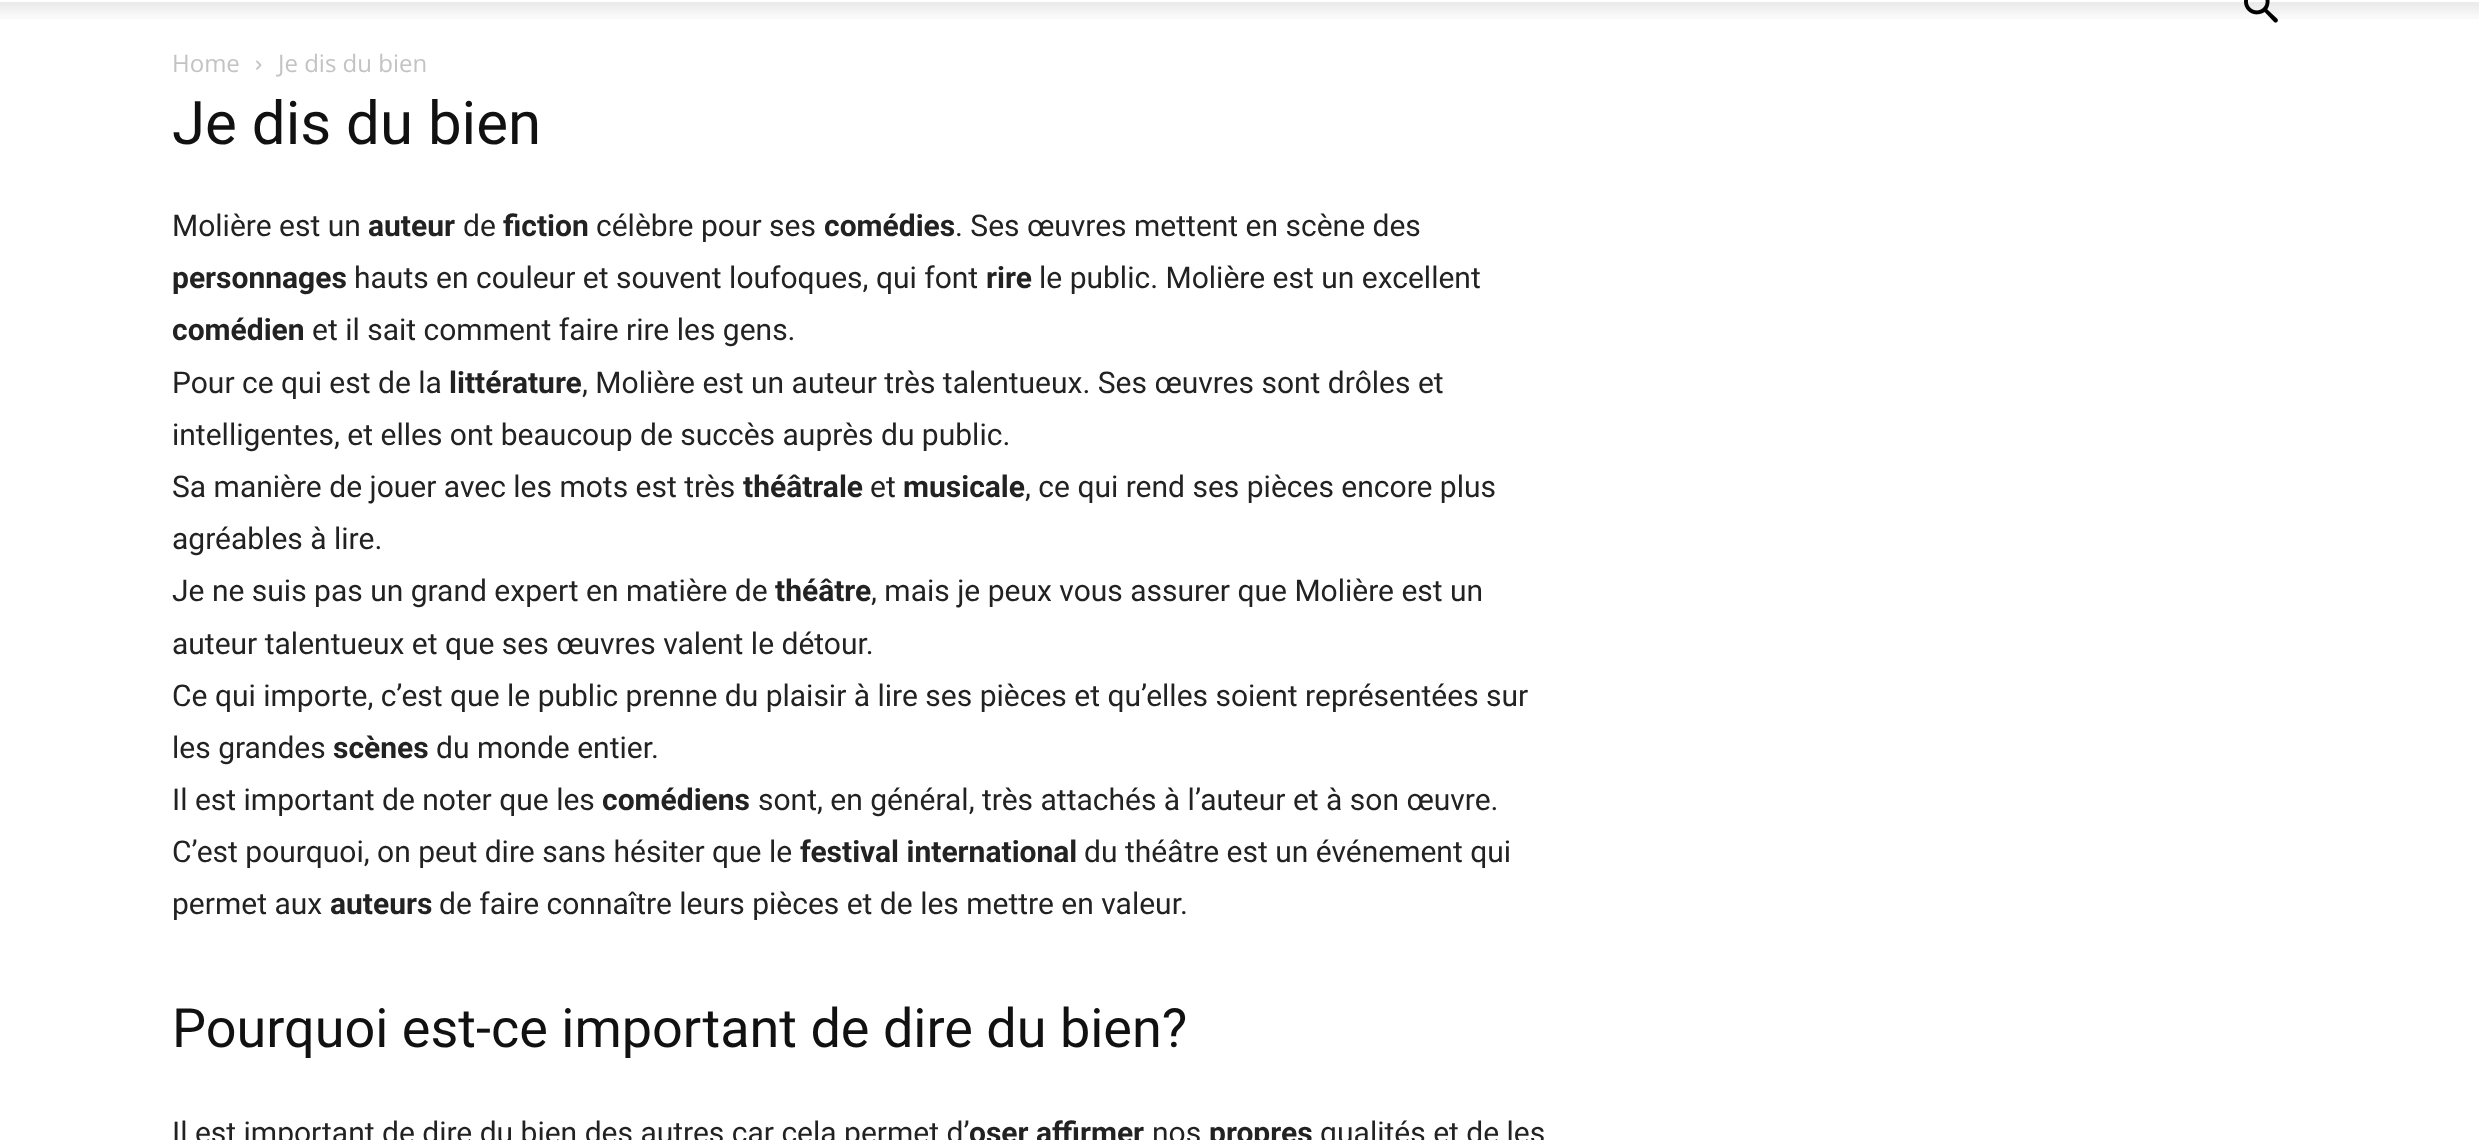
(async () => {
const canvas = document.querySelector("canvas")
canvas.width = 2479
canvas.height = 1140
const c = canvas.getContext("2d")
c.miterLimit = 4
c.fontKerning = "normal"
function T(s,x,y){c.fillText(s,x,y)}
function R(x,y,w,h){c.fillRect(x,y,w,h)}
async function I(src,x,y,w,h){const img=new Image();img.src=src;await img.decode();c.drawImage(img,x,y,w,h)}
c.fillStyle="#fff"
R(0,0,2479,1140)
await I("2.png",0,2,2479,17)
await I("1.png",2244,0,34,23)
c.font="24px Open Sans"
c.fillStyle="#c3c3c3"
T("Home",172,72)
await I("3.png",256,60,6,10)
T("Je dis du bien",278,72)
c.font="60px Roboto"
c.fillStyle="#111"
T("Je dis du bien",172,144)
c.font="30px Roboto"
c.fillStyle="#222"
T("Molière est un",172,236)
c.font="bold 30px Roboto"
T("auteur",368,236)
c.font="30px Roboto"
T("de",463,236)
c.font="bold 30px Roboto"
T("fiction",503,236)
c.font="30px Roboto"
T("célèbre pour ses",596,236)
c.font="bold 30px Roboto"
T("comédies",824,236)
c.font="30px Roboto"
T(". Ses œuvres mettent en scène des",955,236)
c.font="bold 30px Roboto"
T("personnages",172,288)
c.font="30px Roboto"
T("hauts en couleur et souvent loufoques, qui font",354,288)
c.font="bold 30px Roboto"
T("rire",986,288)
c.font="30px Roboto"
T("le public. Molière est un excellent",1039,288)
c.font="bold 30px Roboto"
T("comédien",172,340)
c.font="30px Roboto"
T("et il sait comment faire rire les gens.",312,340)
T("Pour ce qui est de la",172,393)
c.font="bold 30px Roboto"
T("littérature",449,393)
c.font="30px Roboto"
T(", Molière est un auteur très talentueux. Ses œuvres sont drôles et",582,393)
T("intelligentes, et elles ont beaucoup de succès auprès du public.",172,445)
T("Sa manière de jouer avec les mots est très",172,497)
c.font="bold 30px Roboto"
T("théâtrale",743,497)
c.font="30px Roboto"
T("et",870,497)
c.font="bold 30px Roboto"
T("musicale",903,497)
c.font="30px Roboto"
T(", ce qui rend ses pièces encore plus",1025,497)
T("agréables à lire.",172,549)
T("Je ne suis pas un grand expert en matière de",172,601)
c.font="bold 30px Roboto"
T("théâtre",775,601)
c.font="30px Roboto"
T(", mais je peux vous assurer que Molière est un",871,601)
T("auteur talentueux et que ses œuvres valent le détour.",172,654)
T("Ce qui importe, c’est que le public prenne du plaisir à lire ses pièces et qu’elles soient représentées sur",172,706)
T("les grandes",172,758)
c.font="bold 30px Roboto"
T("scènes",333,758)
c.font="30px Roboto"
T("du monde entier.",436,758)
T("Il est important de noter que les",172,810)
c.font="bold 30px Roboto"
T("comédiens",602,810)
c.font="30px Roboto"
T("sont, en général, très attachés à l’auteur et à son œuvre.",758,810)
T("C’est pourquoi, on peut dire sans hésiter que le",172,862)
c.font="bold 30px Roboto"
T("festival international",800,862)
c.font="30px Roboto"
T("du théâtre est un événement qui",1084,862)
T("permet aux",172,914)
c.font="bold 30px Roboto"
T("auteurs",330,914)
c.font="30px Roboto"
T("de faire connaître leurs pièces et de les mettre en valeur.",439,914)
c.font="54px Roboto"
c.fillStyle="#111"
T("Pourquoi est-ce important de dire du bien?",172,1047)
c.font="30px Roboto"
c.fillStyle="#222"
T("Il est important de dire du bien des autres car cela permet d’",172,1143)
c.font="bold 30px Roboto"
T("oser affirmer",969,1143)
c.font="30px Roboto"
T("nos",1152,1143)
c.font="bold 30px Roboto"
T("propres",1209,1143)
c.font="30px Roboto"
T("qualités et de les",1320,1143)
})()
